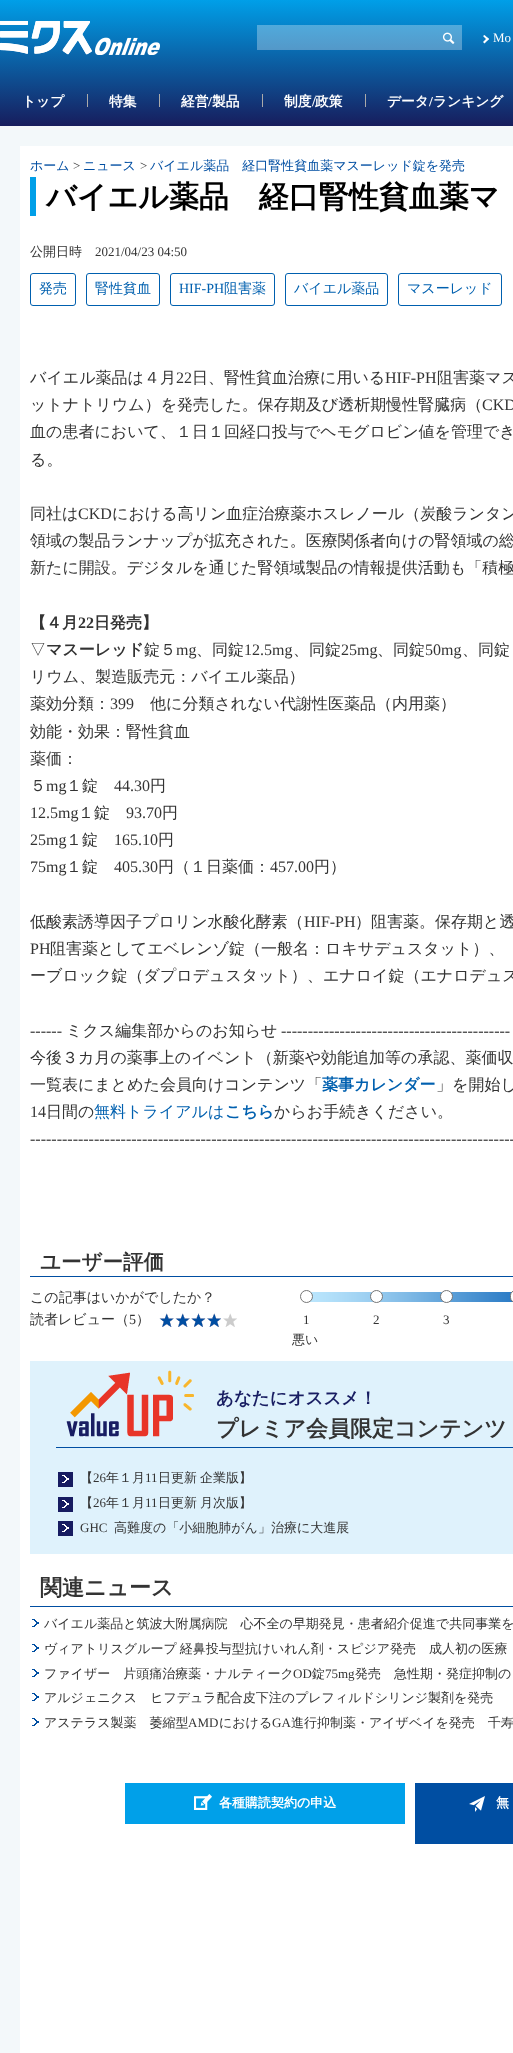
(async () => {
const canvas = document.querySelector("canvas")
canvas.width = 513
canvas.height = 2053
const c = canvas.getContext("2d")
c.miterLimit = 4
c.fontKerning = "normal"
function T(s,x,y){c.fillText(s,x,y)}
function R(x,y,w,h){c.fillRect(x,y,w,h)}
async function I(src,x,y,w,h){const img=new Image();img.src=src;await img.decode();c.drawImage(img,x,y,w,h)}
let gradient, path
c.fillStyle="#f3f8fa"
R(0,0,513,2053)
gradient = c.createLinearGradient(257,0,257,126)
gradient.addColorStop(0,"#009fe8")
gradient.addColorStop(1,"#171d5d")
c.fillStyle = gradient
R(0,0,513,126)
gradient = c.createLinearGradient(257,0,257,126)
gradient.addColorStop(0,"#4dbcef")
gradient.addColorStop(1,"#5d618e")
c.fillStyle = gradient
R(257,25,205,25)
await I("1.png",0,20,160,35)
await I("2.png",442,32,13,12)
c.fillStyle="#fff"
path = new Path2D("M484.5 35l4.5 4l-1.5 1.5l-4.5-4.5z")
c.fill(path)
path = new Path2D("M487.5 37.5l1.5 1.5l-4.5 4.5l-1.5-1.5z")
c.fill(path)
c.font="13px Liberation Serif"
T("Mo",493,42)
c.font="bold 13.75px WenQuanYi Zen Hei"
T("トップ",22,106)
c.fillStyle="#aaa"
R(87,94,1,13)
c.fillStyle="#fff"
T("特集",109,106)
c.fillStyle="#aaa"
R(159,94,1,13)
c.fillStyle="#fff"
T("経営",181,106)
c.font="bold 13.75px Liberation Serif"
T("/",208,106)
c.font="bold 13.75px WenQuanYi Zen Hei"
T("製品",212,106)
c.fillStyle="#aaa"
R(262,94,1,13)
c.fillStyle="#fff"
T("制度",284,106)
c.font="bold 13.75px Liberation Serif"
T("/",312,106)
c.font="bold 13.75px WenQuanYi Zen Hei"
T("政策",315,106)
c.fillStyle="#aaa"
R(365,94,1,13)
c.fillStyle="#fff"
T("データ",387,106)
c.font="bold 13.75px Liberation Serif"
T("/",429,106)
c.font="bold 13.75px WenQuanYi Zen Hei"
T("ランキング",433,106)
R(20,146,493,1907)
c.font="500 13px WenQuanYi Zen Hei"
c.fillStyle="#004ea2"
T("ホーム",30,170)
c.font="13px Liberation Serif"
c.fillStyle="#333"
T(">",73,170)
c.font="500 13px WenQuanYi Zen Hei"
c.fillStyle="#004ea2"
T("ニュース",83,170)
c.font="13px Liberation Serif"
c.fillStyle="#333"
T(">",140,170)
c.font="500 13px WenQuanYi Zen Hei"
c.fillStyle="#004ea2"
T("バイエル薬品　経口腎性貧血薬マスーレッド錠を発売",150,170)
c.fillStyle="#009fe8"
R(30,177,6,39)
c.font="bold 30px WenQuanYi Zen Hei"
c.fillStyle="#000"
T("バイエル薬品　経口腎性貧血薬マ",46,207)
c.font="500 13px WenQuanYi Zen Hei"
c.fillStyle="#333"
T("公開日時",30,256)
c.font="13px Liberation Serif"
T("2021/04/23 04:50",95,256)
c.beginPath()
c.roundRect(30.5,273.5,45,32,2.5)
c.strokeStyle="#0060af"
c.stroke()
c.font="500 14px WenQuanYi Zen Hei"
c.fillStyle="#0060af"
T("発売",39,293)
c.beginPath()
c.roundRect(86.5,273.5,73,32,2.5)
c.stroke()
T("腎性貧血",95,293)
c.beginPath()
c.roundRect(170.5,273.5,104,32,2.5)
c.stroke()
c.font="14px Liberation Serif"
T("HIF-PH",179,293)
c.font="500 14px WenQuanYi Zen Hei"
T("阻害薬",224,293)
c.beginPath()
c.roundRect(285.5,273.5,102,32,2.5)
c.stroke()
T("バイエル薬品",294,293)
c.beginPath()
c.roundRect(398.5,273.5,103,32,2.5)
c.stroke()
T("マスーレッド",407,293)
c.font="500 16px WenQuanYi Zen Hei"
c.fillStyle="#333"
T("バイエル薬品は４月",30,383)
c.font="16px Liberation Serif"
T("22",176,383)
c.font="500 16px WenQuanYi Zen Hei"
T("日、腎性貧血治療に用いる",192,383)
c.font="16px Liberation Serif"
T("HIF-PH",385,383)
c.font="500 16px WenQuanYi Zen Hei"
T("阻害薬マス",437,383)
T("ットナトリウム）を発売した。保存期及び透析期慢性腎臓病（",30,410)
c.font="16px Liberation Serif"
T("CKD",482,410)
c.font="500 16px WenQuanYi Zen Hei"
T("血の患者において、１日１回経口投与でヘモグロビン値を管理でき",30,437)
T("る。",30,465)
T("同社は",30,519)
c.font="16px Liberation Serif"
T("CKD",78,519)
c.font="500 16px WenQuanYi Zen Hei"
T("における高リン血症治療薬ホスレノール（炭酸ランタン",112,519)
T("領域の製品ランナップが拡充された。医療関係者向けの腎領域の総",30,546)
T("新たに開設。デジタルを通じた腎領域製品の情報提供活動も「積極",30,573)
c.font="bold 16px WenQuanYi Zen Hei"
T("【４月",30,628)
c.font="bold 16px Liberation Serif"
T("22",78,628)
c.font="bold 16px WenQuanYi Zen Hei"
T("日発売】",94,628)
c.font="500 16px WenQuanYi Zen Hei"
T("▽",30,655)
c.font="bold 16px WenQuanYi Zen Hei"
T("マスーレッド",46,655)
c.font="500 16px WenQuanYi Zen Hei"
T("錠５",144,655)
c.font="16px Liberation Serif"
T("mg",176,655)
c.font="500 16px WenQuanYi Zen Hei"
T("、同錠",196,655)
c.font="16px Liberation Serif"
T("12.5mg",244,655)
c.font="500 16px WenQuanYi Zen Hei"
T("、同錠",293,655)
c.font="16px Liberation Serif"
T("25mg",341,655)
c.font="500 16px WenQuanYi Zen Hei"
T("、同錠",377,655)
c.font="16px Liberation Serif"
T("50mg",425,655)
c.font="500 16px WenQuanYi Zen Hei"
T("、同錠",462,655)
T("リウム、製造販売元：バイエル薬品）",30,682)
T("薬効分類：",30,709)
c.font="16px Liberation Serif"
T("399",110,709)
c.font="500 16px WenQuanYi Zen Hei"
T("他に分類されない代謝性医薬品（内用薬）",150,709)
T("効能・効果：腎性貧血",30,737)
T("薬価：",30,764)
T("５",30,791)
c.font="16px Liberation Serif"
T("mg",46,791)
c.font="500 16px WenQuanYi Zen Hei"
T("１錠",66,791)
c.font="16px Liberation Serif"
T("44.30",114,791)
c.font="500 16px WenQuanYi Zen Hei"
T("円",150,791)
c.font="16px Liberation Serif"
T("12.5mg",30,818)
c.font="500 16px WenQuanYi Zen Hei"
T("１錠",78,818)
c.font="16px Liberation Serif"
T("93.70",126,818)
c.font="500 16px WenQuanYi Zen Hei"
T("円",162,818)
c.font="16px Liberation Serif"
T("25mg",30,845)
c.font="500 16px WenQuanYi Zen Hei"
T("１錠",66,845)
c.font="16px Liberation Serif"
T("165.10",114,845)
c.font="500 16px WenQuanYi Zen Hei"
T("円",158,845)
c.font="16px Liberation Serif"
T("75mg",30,872)
c.font="500 16px WenQuanYi Zen Hei"
T("１錠",66,872)
c.font="16px Liberation Serif"
T("405.30",114,872)
c.font="500 16px WenQuanYi Zen Hei"
T("円（１日薬価：",158,872)
c.font="16px Liberation Serif"
T("457.00",270,872)
c.font="500 16px WenQuanYi Zen Hei"
T("円）",314,872)
T("低酸素誘導因子プロリン水酸化酵素（",30,927)
c.font="16px Liberation Serif"
T("HIF-PH",304,927)
c.font="500 16px WenQuanYi Zen Hei"
T("）阻害薬。保存期と透",355,927)
c.font="16px Liberation Serif"
T("PH",30,954)
c.font="500 16px WenQuanYi Zen Hei"
T("阻害薬としてエベレンゾ錠（一般名：ロキサデュスタット）、",50,954)
T("ーブロック錠（ダプロデュスタット）、エナロイ錠（エナロデュス",30,981)
c.font="16px Liberation Serif"
T("------",30,1036)
c.font="500 16px WenQuanYi Zen Hei"
T("ミクス編集部からのお知らせ",66,1036)
c.font="16px Liberation Serif"
T("-------------------------------------------",281,1036)
c.font="500 16px WenQuanYi Zen Hei"
T("今後３カ月の薬事上のイベント（新薬や効能追加等の承認、薬価収",30,1063)
T("一覧表にまとめた会員向けコンテンツ「",30,1090)
c.font="bold 16px WenQuanYi Zen Hei"
c.fillStyle="#0060af"
T("薬事カレンダー",322,1090)
c.font="500 16px WenQuanYi Zen Hei"
c.fillStyle="#333"
T("」を開始し",436,1090)
c.font="16px Liberation Serif"
T("14",30,1117)
c.font="500 16px WenQuanYi Zen Hei"
T("日間の",46,1117)
c.fillStyle="#0060af"
T("無料トライアルは",94,1117)
c.font="bold 16px WenQuanYi Zen Hei"
T("こちら",225,1117)
c.font="500 16px WenQuanYi Zen Hei"
c.fillStyle="#333"
T("からお手続きください。",274,1117)
c.font="16px Liberation Serif"
T("-------------------------------------------------------------------------------------------",30,1144)
c.fillStyle="#004ea2"
R(30,1276,483,1)
c.font="bold 20.5px WenQuanYi Zen Hei"
c.fillStyle="#333"
T("ユーザー評価",40,1269)
c.font="500 14px WenQuanYi Zen Hei"
T("この記事はいかがでしたか？",30,1302)
T("読者レビュー（",30,1324)
c.font="14px Liberation Serif"
T("5",129,1324)
c.font="500 14px WenQuanYi Zen Hei"
T("）",136,1324)
await I("3.png",159,1313,78,14)
await I("4.png",310,1292,203,10)
c.fillStyle="#fff"
c.beginPath()
c.arc(306.5,1296.5,6,0,7)
c.fill()
c.strokeStyle="#767676"
c.stroke()
c.beginPath()
c.arc(376.5,1296.5,6,0,7)
c.fill()
c.stroke()
c.beginPath()
c.arc(446.5,1296.5,6,0,7)
c.fill()
c.stroke()
c.beginPath()
c.roundRect(510.5,1290.5,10,12,6)
c.fill()
c.stroke()
c.font="13px Liberation Serif"
c.fillStyle="#333"
T("1",303,1324)
T("2",373,1324)
T("3",443,1324)
c.font="500 13px WenQuanYi Zen Hei"
T("悪い",292,1344)
c.fillStyle="#dff2fc"
R(30,1361,483,193)
c.fillStyle="#004ea2"
R(56,1447,457,1)
await I("5.png",66,1370,128,67)
c.font="bold 17.5px WenQuanYi Zen Hei"
c.fillStyle="#181d62"
T("あなたにオススメ！",216,1404)
c.font="bold 22px WenQuanYi Zen Hei"
c.fillStyle="#333"
T("プレミア会員限定コンテンツ",216,1436)
c.fillStyle="#171c61"
R(58,1472,15,15)
c.font="500 13px WenQuanYi Zen Hei"
c.fillStyle="#333"
T("【",80,1482)
c.font="13px Liberation Serif"
T("26",93,1482)
c.font="500 13px WenQuanYi Zen Hei"
T("年１月",106,1482)
c.font="13px Liberation Serif"
T("11",145,1482)
c.wordSpacing="-1px"
c.font="500 13px WenQuanYi Zen Hei"
T("日更新 企業版】",158,1482)
gradient = c.createLinearGradient(63,1478,68,1484)
gradient.addColorStop(.4,"#171c61")
gradient.addColorStop(.4,"#fff")
gradient.addColorStop(.6,"#fff")
gradient.addColorStop(.6,"#171c61")
gradient.addColorStop(1,"#171c61")
c.fillStyle = gradient
R(62,1479,7,4)
gradient = c.createLinearGradient(63,1480,68,1474)
gradient.addColorStop(.4,"#171c61")
gradient.addColorStop(.4,"#fff")
gradient.addColorStop(.6,"#fff")
gradient.addColorStop(.6,"#171c61")
gradient.addColorStop(1,"#171c61")
c.fillStyle = gradient
R(62,1475,7,4)
c.fillStyle="#171c61"
R(58,1497,15,15)
c.wordSpacing="0px"
c.fillStyle="#333"
T("【",80,1507)
c.font="13px Liberation Serif"
T("26",93,1507)
c.font="500 13px WenQuanYi Zen Hei"
T("年１月",106,1507)
c.font="13px Liberation Serif"
T("11",145,1507)
c.wordSpacing="-1px"
c.font="500 13px WenQuanYi Zen Hei"
T("日更新 月次版】",158,1507)
gradient = c.createLinearGradient(63,1503,68,1509)
gradient.addColorStop(.4,"#171c61")
gradient.addColorStop(.4,"#fff")
gradient.addColorStop(.6,"#fff")
gradient.addColorStop(.6,"#171c61")
gradient.addColorStop(1,"#171c61")
c.fillStyle = gradient
R(62,1504,7,4)
gradient = c.createLinearGradient(63,1505,68,1499)
gradient.addColorStop(.4,"#171c61")
gradient.addColorStop(.4,"#fff")
gradient.addColorStop(.6,"#fff")
gradient.addColorStop(.6,"#171c61")
gradient.addColorStop(1,"#171c61")
c.fillStyle = gradient
R(62,1500,7,4)
c.fillStyle="#171c61"
R(58,1521,15,15)
c.wordSpacing="0px"
c.font="13px Liberation Serif"
c.fillStyle="#333"
T("GHC",80,1532)
c.font="500 13px WenQuanYi Zen Hei"
T("高難度の「小細胞肺がん」治療に大進展",114,1532)
gradient = c.createLinearGradient(63,1527,68,1533)
gradient.addColorStop(.4,"#171c61")
gradient.addColorStop(.4,"#fff")
gradient.addColorStop(.6,"#fff")
gradient.addColorStop(.6,"#171c61")
gradient.addColorStop(1,"#171c61")
c.fillStyle = gradient
R(62,1528,7,4)
gradient = c.createLinearGradient(63,1529,68,1523)
gradient.addColorStop(.4,"#171c61")
gradient.addColorStop(.4,"#fff")
gradient.addColorStop(.6,"#fff")
gradient.addColorStop(.6,"#171c61")
gradient.addColorStop(1,"#171c61")
c.fillStyle = gradient
R(62,1524,7,4)
c.fillStyle="#004ea2"
R(30,1606,483,1)
c.font="bold 22px WenQuanYi Zen Hei"
c.fillStyle="#333"
T("関連ニュース",40,1595)
gradient = c.createLinearGradient(33,1622,38,1628)
gradient.addColorStop(.4,"#fff")
gradient.addColorStop(.4,"#014fa2")
gradient.addColorStop(.6,"#014fa2")
gradient.addColorStop(.6,"#fff")
gradient.addColorStop(1,"#fff")
c.fillStyle = gradient
R(32,1623,7,4)
gradient = c.createLinearGradient(33,1624,38,1618)
gradient.addColorStop(.4,"#fff")
gradient.addColorStop(.4,"#014fa2")
gradient.addColorStop(.6,"#014fa2")
gradient.addColorStop(.6,"#fff")
gradient.addColorStop(1,"#fff")
c.fillStyle = gradient
R(32,1619,7,4)
c.font="500 13px WenQuanYi Zen Hei"
c.fillStyle="#333"
T("バイエル薬品と筑波大附属病院　心不全の早期発見・患者紹介促進で共同事業を",44,1628)
gradient = c.createLinearGradient(33,1647,38,1653)
gradient.addColorStop(.4,"#fff")
gradient.addColorStop(.4,"#014fa2")
gradient.addColorStop(.6,"#014fa2")
gradient.addColorStop(.6,"#fff")
gradient.addColorStop(1,"#fff")
c.fillStyle = gradient
R(32,1648,7,4)
gradient = c.createLinearGradient(33,1649,38,1643)
gradient.addColorStop(.4,"#fff")
gradient.addColorStop(.4,"#014fa2")
gradient.addColorStop(.6,"#014fa2")
gradient.addColorStop(.6,"#fff")
gradient.addColorStop(1,"#fff")
c.fillStyle = gradient
R(32,1644,7,4)
c.wordSpacing="-1px"
c.fillStyle="#333"
T("ヴィアトリスグループ 経鼻投与型抗けいれん剤・スピジア発売　成人初の医療",44,1653)
gradient = c.createLinearGradient(33,1672,38,1678)
gradient.addColorStop(.4,"#fff")
gradient.addColorStop(.4,"#014fa2")
gradient.addColorStop(.6,"#014fa2")
gradient.addColorStop(.6,"#fff")
gradient.addColorStop(1,"#fff")
c.fillStyle = gradient
R(32,1673,7,4)
gradient = c.createLinearGradient(33,1674,38,1668)
gradient.addColorStop(.4,"#fff")
gradient.addColorStop(.4,"#014fa2")
gradient.addColorStop(.6,"#014fa2")
gradient.addColorStop(.6,"#fff")
gradient.addColorStop(1,"#fff")
c.fillStyle = gradient
R(32,1669,7,4)
c.wordSpacing="0px"
c.fillStyle="#333"
T("ファイザー　片頭痛治療薬・ナルティーク",44,1678)
c.font="13px Liberation Serif"
T("OD",293,1678)
c.font="500 13px WenQuanYi Zen Hei"
T("錠",312,1678)
c.font="13px Liberation Serif"
T("75mg",325,1678)
c.font="500 13px WenQuanYi Zen Hei"
T("発売　急性期・発症抑制の",355,1678)
gradient = c.createLinearGradient(33,1696,38,1702)
gradient.addColorStop(.4,"#fff")
gradient.addColorStop(.4,"#014fa2")
gradient.addColorStop(.6,"#014fa2")
gradient.addColorStop(.6,"#fff")
gradient.addColorStop(1,"#fff")
c.fillStyle = gradient
R(32,1697,7,4)
gradient = c.createLinearGradient(33,1698,38,1692)
gradient.addColorStop(.4,"#fff")
gradient.addColorStop(.4,"#014fa2")
gradient.addColorStop(.6,"#014fa2")
gradient.addColorStop(.6,"#fff")
gradient.addColorStop(1,"#fff")
c.fillStyle = gradient
R(32,1693,7,4)
c.fillStyle="#333"
T("アルジェニクス　ヒフデュラ配合皮下注のプレフィルドシリンジ製剤を発売",44,1702)
gradient = c.createLinearGradient(33,1721,38,1727)
gradient.addColorStop(.4,"#fff")
gradient.addColorStop(.4,"#014fa2")
gradient.addColorStop(.6,"#014fa2")
gradient.addColorStop(.6,"#fff")
gradient.addColorStop(1,"#fff")
c.fillStyle = gradient
R(32,1722,7,4)
gradient = c.createLinearGradient(33,1723,38,1717)
gradient.addColorStop(.4,"#fff")
gradient.addColorStop(.4,"#014fa2")
gradient.addColorStop(.6,"#014fa2")
gradient.addColorStop(.6,"#fff")
gradient.addColorStop(1,"#fff")
c.fillStyle = gradient
R(32,1718,7,4)
c.fillStyle="#333"
T("アステラス製薬　萎縮型",44,1727)
c.font="13px Liberation Serif"
T("AMD",188,1727)
c.font="500 13px WenQuanYi Zen Hei"
T("における",219,1727)
c.font="13px Liberation Serif"
T("GA",272,1727)
c.font="500 13px WenQuanYi Zen Hei"
T("進行抑制薬・アイザベイを発売　千寿",291,1727)
c.fillStyle="#00a0e9"
R(125,1783,280,41)
await I("6.png",194,1794,18,16)
c.font="bold 13px WenQuanYi Zen Hei"
c.fillStyle="#fff"
T("各種購読契約の申込",219,1807)
c.fillStyle="#004ea2"
R(415,1783,98,61)
await I("7.png",469,1796,16,16)
c.fillStyle="#fff"
T("無",496,1807)
})()
